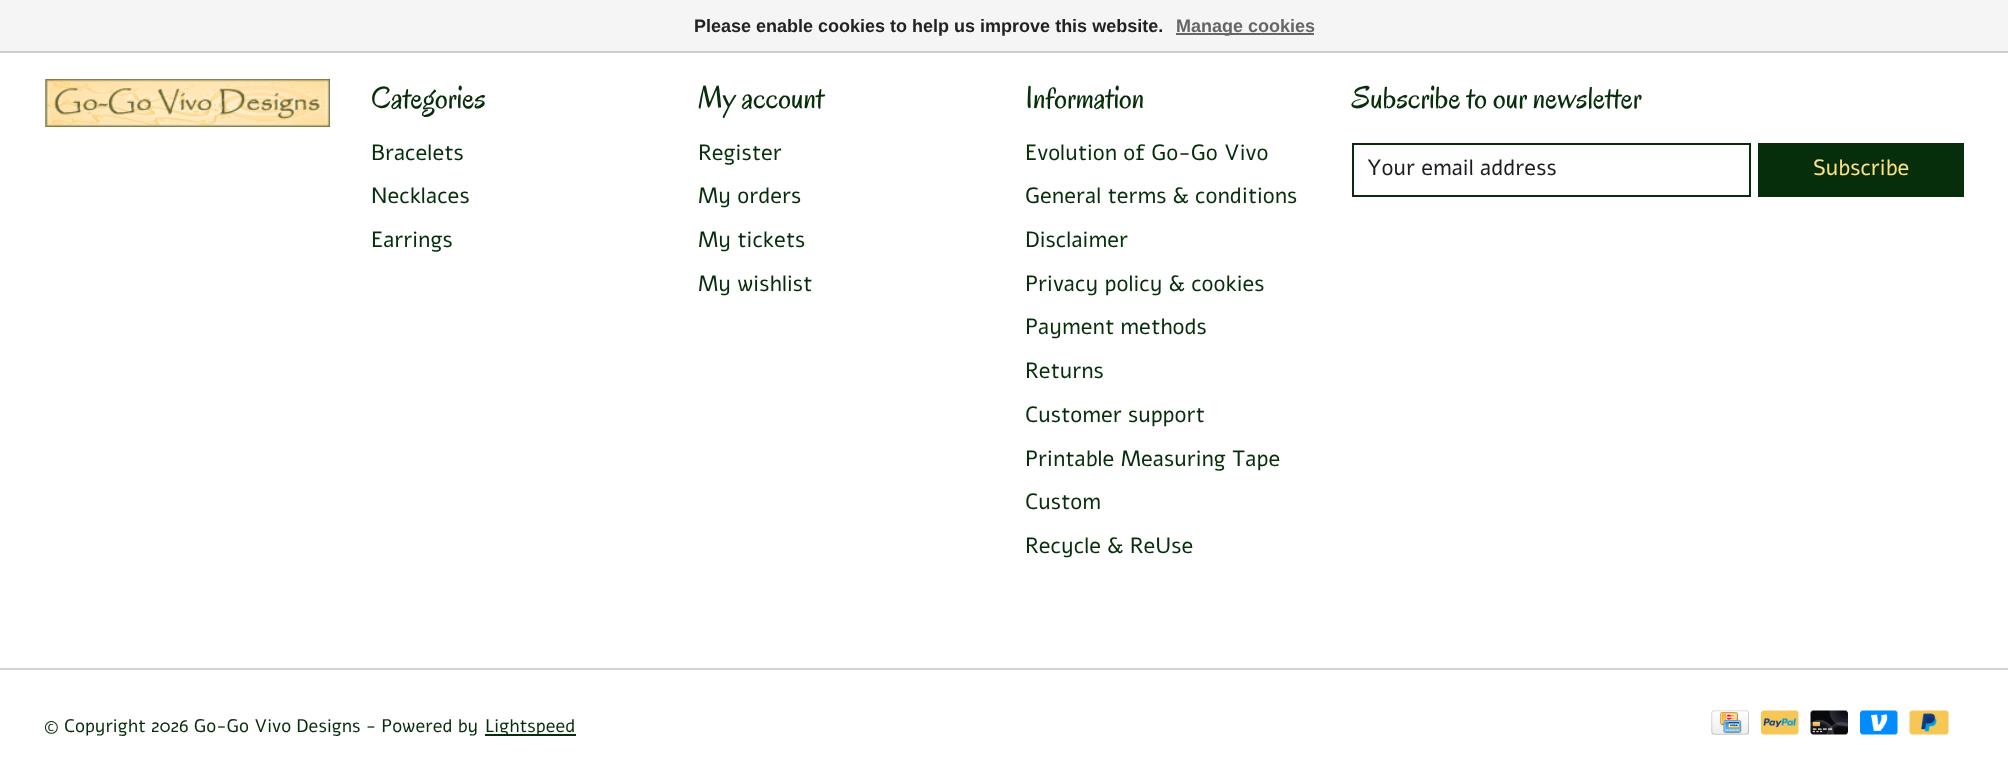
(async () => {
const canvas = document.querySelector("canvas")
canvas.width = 2008
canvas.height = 781
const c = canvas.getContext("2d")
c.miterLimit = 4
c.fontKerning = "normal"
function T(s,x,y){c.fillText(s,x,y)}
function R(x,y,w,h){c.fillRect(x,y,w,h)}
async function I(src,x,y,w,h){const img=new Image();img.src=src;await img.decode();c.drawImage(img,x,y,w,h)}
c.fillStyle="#fff"
R(0,0,2008,781)
c.fillStyle="#f5f5f5"
R(0,0,2008,51)
c.fillStyle="#ccc"
R(0,51,2008,2)
c.font="bold 18px Liberation Sans"
c.fillStyle="#222"
T("Please enable cookies to help us improve this website.",694,32)
c.fillStyle="#666"
R(1176,33,138,2)
T("Manage cookies",1176,32)
await I("1.png",45,79,285,48)
c.font="31.75px Oregano"
c.fillStyle="#072e0a"
T("Categories",371,108)
c.font="22px Alef"
T("Bracelets",371,160)
T("Necklaces",371,203)
T("Earrings",371,247)
c.font="31.75px Oregano"
T("My account",698,108)
c.font="22px Alef"
T("Register",698,160)
T("My orders",698,203)
T("My tickets",698,247)
T("My wishlist",698,291)
c.font="31.75px Oregano"
T("Information",1025,108)
c.font="22px Alef"
T("Evolution of Go-Go Vivo",1025,160)
T("General terms & conditions",1025,203)
T("Disclaimer",1025,247)
T("Privacy policy & cookies",1025,291)
T("Payment methods",1025,334)
T("Returns",1025,378)
T("Customer support",1025,422)
T("Printable Measuring Tape",1025,466)
T("Custom",1025,509)
T("Recycle & ReUse",1025,553)
c.font="31.75px Oregano"
T("Subscribe to our newsletter",1352,108)
c.strokeStyle="#072e0a"
c.lineWidth=2
c.strokeRect(1353,144,397,52)
c.font="22px Alef"
c.fillStyle="#1c1c21"
T("Your email address",1367,175)
c.fillStyle="#072e0a"
R(1758,143,206,54)
c.fillStyle="#fde182"
T("Subscribe",1813,175)
c.fillStyle="#cdd5ce"
R(0,668,2008,2)
c.font="18.3px Alef"
c.fillStyle="#072e0a"
T("© Copyright 2026 Go-Go Vivo Designs - Powered by",44,732)
R(485,734,91,2)
T("Lightspeed",485,732)
await I("2.png",1711,710,38,25)
await I("3.png",1761,710,38,25)
await I("4.png",1810,710,38,25)
await I("5.png",1860,710,38,25)
await I("6.png",1909,710,40,25)
})()
